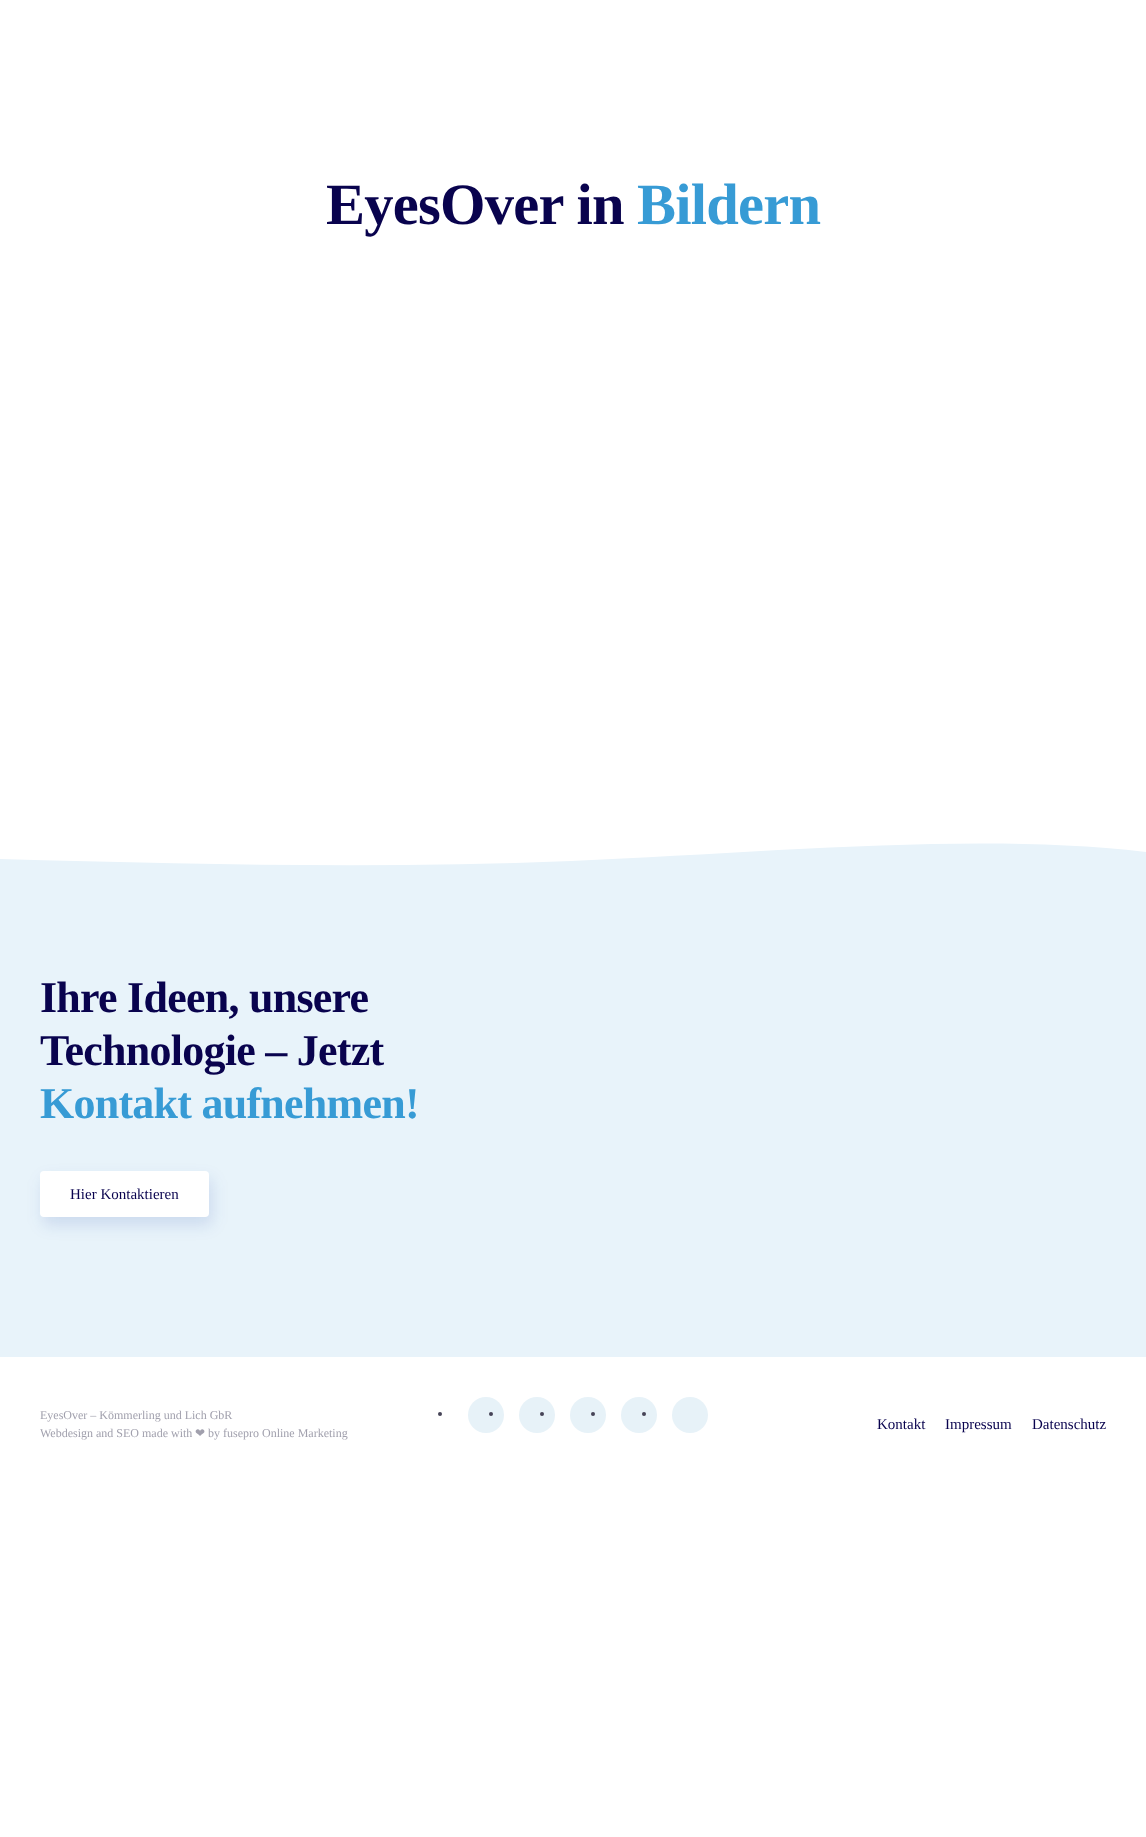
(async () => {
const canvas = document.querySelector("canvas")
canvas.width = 1146
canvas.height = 1837
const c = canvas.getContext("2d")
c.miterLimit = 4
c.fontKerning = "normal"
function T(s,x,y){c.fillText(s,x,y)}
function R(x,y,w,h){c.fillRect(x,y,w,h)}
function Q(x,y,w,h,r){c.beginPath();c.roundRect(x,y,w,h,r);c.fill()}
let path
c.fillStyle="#fff"
R(0,0,1146,1837)
c.letterSpacing="-0.75px"
c.font="bold 58.5px Liberation Serif"
c.fillStyle="#09034e"
T("EyesOver in",326,224)
c.fillStyle="#379bd5"
T("Bildern",637,224)
c.fillStyle="#e8f3fa"
R(0,843,1146,514)
c.save()
c.beginPath()
c.rect(0,831,1146,115)
c.clip()
c.fillStyle="#fff"
path = new Path2D("M0 859v-312h1146v305c-170-20-378 1-575 9c-198 8-385 3-571-2z")
c.fill(path)
c.restore()
c.font="bold 44px Liberation Serif"
c.fillStyle="#09034e"
T("Ihre Ideen, unsere",40,1012)
T("Technologie – Jetzt",40,1065)
c.fillStyle="#379bd5"
T("Kontakt aufnehmen!",40,1118)
c.fillStyle="#00289b1f"
c.filter="blur(8px)"
c.beginPath()
c.roundRect(43,1179,169,46,4)
c.fill()
c.filter="none"
c.fillStyle="#fff"
Q(40,1171,169,46,4)
c.letterSpacing="0px"
c.font="15px Liberation Serif"
c.fillStyle="#09034e"
T("Hier Kontaktieren",70,1199)
c.font="12px Liberation Serif"
c.fillStyle="#a1a0ad"
T("EyesOver – Kömmerling und Lich GbR",40,1419)
T("Webdesign and SEO made with",40,1437)
c.font="12px DejaVu Sans"
T("❤",195,1437)
c.font="12px Liberation Serif"
T("by fusepro Online Marketing",208,1437)
c.fillStyle="#464457"
c.beginPath()
c.arc(440,1414,2,0,7)
c.fill()
c.fillStyle="#e7f2f8"
c.beginPath()
c.arc(486,1415,18,0,7)
c.fill()
c.fillStyle="#464457"
c.beginPath()
c.arc(491,1414,2,0,7)
c.fill()
c.fillStyle="#e7f2f8"
c.beginPath()
c.arc(537,1415,18,0,7)
c.fill()
c.fillStyle="#464457"
c.beginPath()
c.arc(542,1414,2,0,7)
c.fill()
c.fillStyle="#e7f2f8"
c.beginPath()
c.arc(588,1415,18,0,7)
c.fill()
c.fillStyle="#464457"
c.beginPath()
c.arc(593,1414,2,0,7)
c.fill()
c.fillStyle="#e7f2f8"
c.beginPath()
c.arc(639,1415,18,0,7)
c.fill()
c.fillStyle="#464457"
c.beginPath()
c.arc(644,1414,2,0,7)
c.fill()
c.fillStyle="#e7f2f8"
c.beginPath()
c.arc(690,1415,18,0,7)
c.fill()
c.font="15px Liberation Serif"
c.fillStyle="#09034e"
T("Kontakt",877,1429)
T("Impressum",945,1429)
T("Datenschutz",1032,1429)
})()
